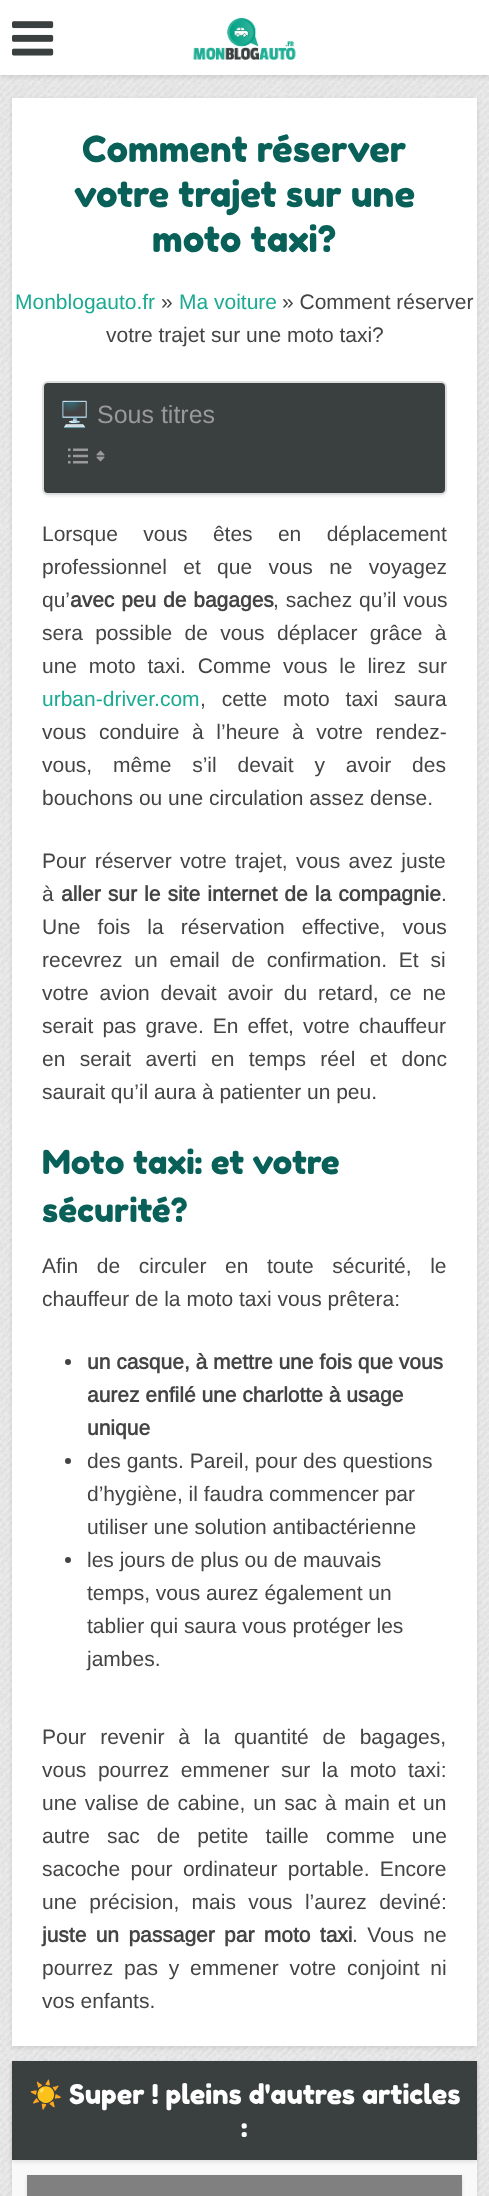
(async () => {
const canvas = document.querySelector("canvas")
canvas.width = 489
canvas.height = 2196
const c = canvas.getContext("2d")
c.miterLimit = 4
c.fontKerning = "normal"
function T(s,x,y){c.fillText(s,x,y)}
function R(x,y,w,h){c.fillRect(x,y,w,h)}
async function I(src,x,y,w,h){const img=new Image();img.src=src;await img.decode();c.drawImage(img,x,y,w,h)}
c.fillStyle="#f0f0f0"
R(0,0,489,2196)
await I("1.png",0,75,489,2121)
c.fillStyle="#0000001a"
c.filter="blur(2px)"
c.beginPath()
c.rect(0,2,489,75)
c.fill()
c.filter="none"
c.fillStyle="#fff"
R(0,0,489,75)
await I("2.png",12,21,42,35)
await I("3.png",193,18,103,42)
c.fillStyle="#0000001a"
c.filter="blur(2px)"
c.beginPath()
c.rect(12,99,465,1949)
c.fill()
c.filter="none"
c.fillStyle="#fff"
R(12,98,465,1948)
c.font="36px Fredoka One"
c.fillStyle="#086059"
T("Comment réserver",82,162)
T("votre trajet sur une",74,207)
T("moto taxi?",152,252)
c.font="21px Arimo"
c.fillStyle="#1bab92"
T("Monblogauto.fr",15,309)
c.fillStyle="#444"
T("»",161,309)
c.fillStyle="#1bab92"
T("Ma voiture",179,309)
c.fillStyle="#444"
T("» Comment réserver",282,309)
T("votre trajet sur une moto taxi?",106,342)
c.fillStyle="#0000000d"
c.filter="blur(1px)"
c.beginPath()
c.roundRect(42,383,405,114,6)
c.fill()
c.filter="none"
c.fillStyle="#3a403f"
c.beginPath()
c.roundRect(43,382,403,112,5)
c.fill()
c.strokeStyle="#ddd"
c.lineWidth=2
c.stroke()
c.font="25px Noto Color Emoji"
c.fillStyle="#999"
T("🖥️",59,423)
c.font="25px Arimo"
T("Sous titres",97,423)
await I("4.png",68,448,20,16)
await I("5.png",96,450,9,12)
c.wordSpacing="19.5px"
c.font="21px Arimo"
c.fillStyle="#444"
T("Lorsque vous êtes en déplacement",42,541)
c.wordSpacing="10.5px"
T("professionnel et que vous ne voyagez",42,574)
c.wordSpacing="0px"
T("qu’",42,607)
c.wordSpacing="1px"
c.font="bold 21px Arimo"
T("avec peu de bagages",70,607)
c.font="21px Arimo"
T(", sachez qu’il vous",273,607)
c.wordSpacing="6.5px"
T("sera possible de vous déplacer grâce à",42,640)
c.wordSpacing="6px"
T("une moto taxi. Comme vous le lirez sur",42,673)
c.wordSpacing="0px"
c.fillStyle="#1bab92"
T("urban-driver.com",42,706)
c.wordSpacing="10px"
c.fillStyle="#444"
T(", cette moto taxi saura",200,706)
c.wordSpacing="6.75px"
T("vous conduire à l’heure à votre rendez-",42,739)
c.wordSpacing="15px"
T("vous, même s’il devait y avoir des",42,772)
c.wordSpacing="0px"
T("bouchons ou une circulation assez dense.",42,805)
c.wordSpacing="2.5px"
T("Pour réserver votre trajet, vous avez juste",42,868)
c.wordSpacing="0px"
T("à",42,901)
c.wordSpacing="1.25px"
c.font="bold 21px Arimo"
T("aller sur le site internet de la compagnie",61,901)
c.wordSpacing="0px"
c.font="21px Arimo"
T(".",441,901)
c.wordSpacing="11.25px"
T("Une fois la réservation effective, vous",42,934)
c.wordSpacing="6px"
T("recevrez un email de confirmation. Et si",42,967)
c.wordSpacing="5px"
T("votre avion devait avoir du retard, ce ne",42,1000)
c.wordSpacing="3.25px"
T("serait pas grave. En effet, votre chauffeur",42,1033)
c.wordSpacing="8.5px"
T("en serait averti en temps réel et donc",42,1066)
c.wordSpacing="0px"
T("saurait qu’il aura à patienter un peu.",42,1099)
c.font="33px Fredoka One"
c.fillStyle="#086059"
T("Moto taxi: et votre",42,1174)
T("sécurité?",42,1222)
c.wordSpacing="12.75px"
c.font="21px Arimo"
c.fillStyle="#444"
T("Afin de circuler en toute sécurité, le",42,1273)
c.wordSpacing="0px"
T("chauffeur de la moto taxi vous prêtera:",42,1306)
c.beginPath()
c.arc(68,1362,3,0,7)
c.fill()
c.font="bold 21px Arimo"
T("un casque, à mettre une fois que vous",87,1369)
T("aurez enfilé une charlotte à usage",87,1402)
T("unique",87,1435)
c.beginPath()
c.arc(68,1461,3,0,7)
c.fill()
c.font="21px Arimo"
T("des gants. Pareil, pour des questions",87,1468)
T("d’hygiène, il faudra commencer par",87,1501)
T("utiliser une solution antibactérienne",87,1534)
c.beginPath()
c.arc(68,1560,3,0,7)
c.fill()
T("les jours de plus ou de mauvais",87,1567)
T("temps, vous aurez également un",87,1600)
T("tablier qui saura vous protéger les",87,1633)
T("jambes.",87,1666)
c.wordSpacing="8px"
T("Pour revenir à la quantité de bagages,",42,1744)
c.wordSpacing="5.75px"
T("vous pourrez emmener sur la moto taxi:",42,1777)
c.wordSpacing="2px"
T("une valise de cabine, un sac à main et un",42,1810)
c.wordSpacing="11.25px"
T("autre sac de petite taille comme une",42,1843)
c.wordSpacing="4.5px"
T("sacoche pour ordinateur portable. Encore",42,1876)
c.wordSpacing="6.5px"
T("une précision, mais vous l’aurez deviné:",42,1909)
c.wordSpacing="3.5px"
c.font="bold 21px Arimo"
T("juste un passager par moto taxi",42,1942)
c.font="21px Arimo"
T(". Vous ne",352,1942)
c.wordSpacing="5px"
T("pourrez pas y emmener votre conjoint ni",42,1975)
c.wordSpacing="0px"
T("vos enfants.",42,2008)
c.fillStyle="#0000001a"
c.filter="blur(2px)"
c.beginPath()
c.rect(12,2063,465,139)
c.fill()
c.filter="none"
c.fillStyle="#f9f9f9"
R(12,2160,465,36)
c.fillStyle="#0000001a"
c.filter="blur(2px)"
c.beginPath()
c.rect(12,2063,465,99)
c.fill()
c.filter="none"
c.fillStyle="#3a403f"
R(12,2061,465,99)
c.font="27px Noto Color Emoji"
c.fillStyle="#fff"
T("☀️",29,2104)
c.font="27px Fredoka One"
T("Super ! pleins d'autres articles",69,2104)
T(":",241,2137)
c.fillStyle="#0000001a"
c.filter="blur(2px)"
c.beginPath()
c.rect(27,2177,435,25)
c.fill()
c.filter="none"
c.fillStyle="#808080"
R(27,2175,435,21)
})()
